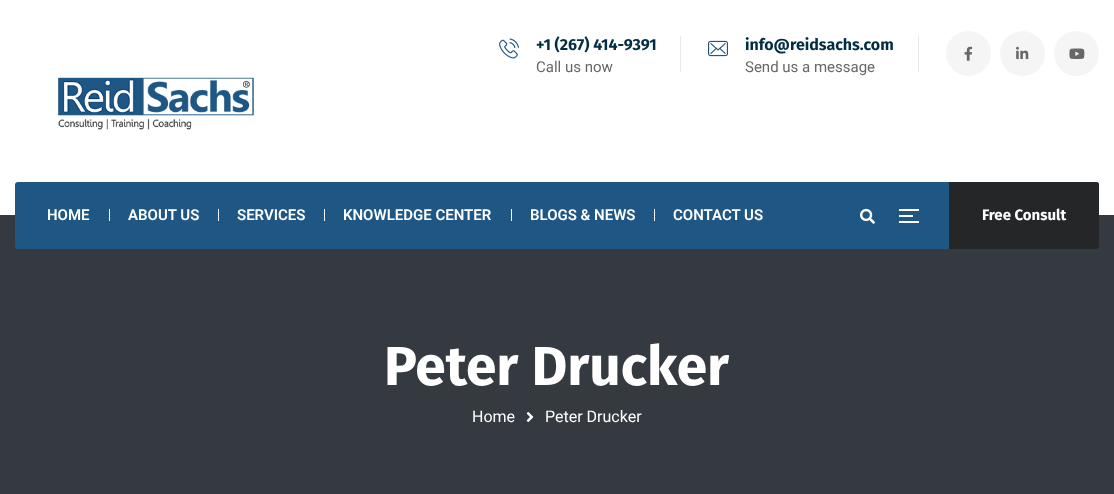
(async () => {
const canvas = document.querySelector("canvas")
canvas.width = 1114
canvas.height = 494
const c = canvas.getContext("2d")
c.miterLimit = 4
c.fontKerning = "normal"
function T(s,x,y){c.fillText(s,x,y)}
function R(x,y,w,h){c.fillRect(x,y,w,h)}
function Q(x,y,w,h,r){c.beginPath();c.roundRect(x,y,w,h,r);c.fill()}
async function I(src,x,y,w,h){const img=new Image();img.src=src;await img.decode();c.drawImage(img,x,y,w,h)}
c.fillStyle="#fff"
R(0,0,1114,494)
await I("1.png",499,38,20,21)
c.font="bold 16px Fira Sans"
c.fillStyle="#032e42"
T("+1 (267) 414-9391",536,50)
c.fillStyle="#e6eaec"
R(680,36,1,36)
c.font="15px Roboto"
c.fillStyle="#676767"
T("Call us now",536,72)
await I("2.png",708,40,20,17)
c.font="bold 16px Fira Sans"
c.fillStyle="#032e42"
T("info@reidsachs.com",745,50)
c.fillStyle="#e6eaec"
R(918,36,1,36)
c.font="15px Roboto"
c.fillStyle="#676767"
T("Send us a message",745,72)
c.fillStyle="#f5f5f5"
c.beginPath()
c.arc(968.5,53.5,22.5,0,7)
c.fill()
await I("3.png",964,46,9,15)
c.beginPath()
c.arc(1022.5,53.5,22.5,0,7)
c.fill()
await I("4.png",1016,46,13,13)
c.beginPath()
c.arc(1076.5,53.5,22.5,0,7)
c.fill()
await I("5.png",1069,48,16,11)
await I("6.png",58,77,196,53)
c.fillStyle="#343a40"
R(0,215,1114,279)
c.fillStyle="#1e5684"
Q(15,182,1084,67,3)
c.font="600 15px Roboto"
c.fillStyle="#fff"
T("HOME",47,220)
R(109,209,1,12)
T("ABOUT US",128,220)
R(218,209,1,12)
T("SERVICES",237,220)
R(324,209,1,12)
T("KNOWLEDGE CENTER",343,220)
R(511,209,1,12)
T("BLOGS & NEWS",530,220)
R(654,209,1,12)
T("CONTACT US",673,220)
await I("7.png",860,208,15,16)
R(899,215,14,2)
R(899,209,20,2)
R(899,221,20,2)
c.fillStyle="#252628"
c.beginPath()
c.roundRect(949,182,150,67,[0,3,3,0])
c.fill()
c.font="bold 15px Fira Sans"
c.fillStyle="#fff"
T("Free Consult",982,220)
c.font="bold 55px Fira Sans"
T("Peter Drucker",384,385)
c.font="16px Roboto"
T("Home",472,422)
await I("8.png",526,412,8,10)
T("Peter Drucker",545,422)
})()
